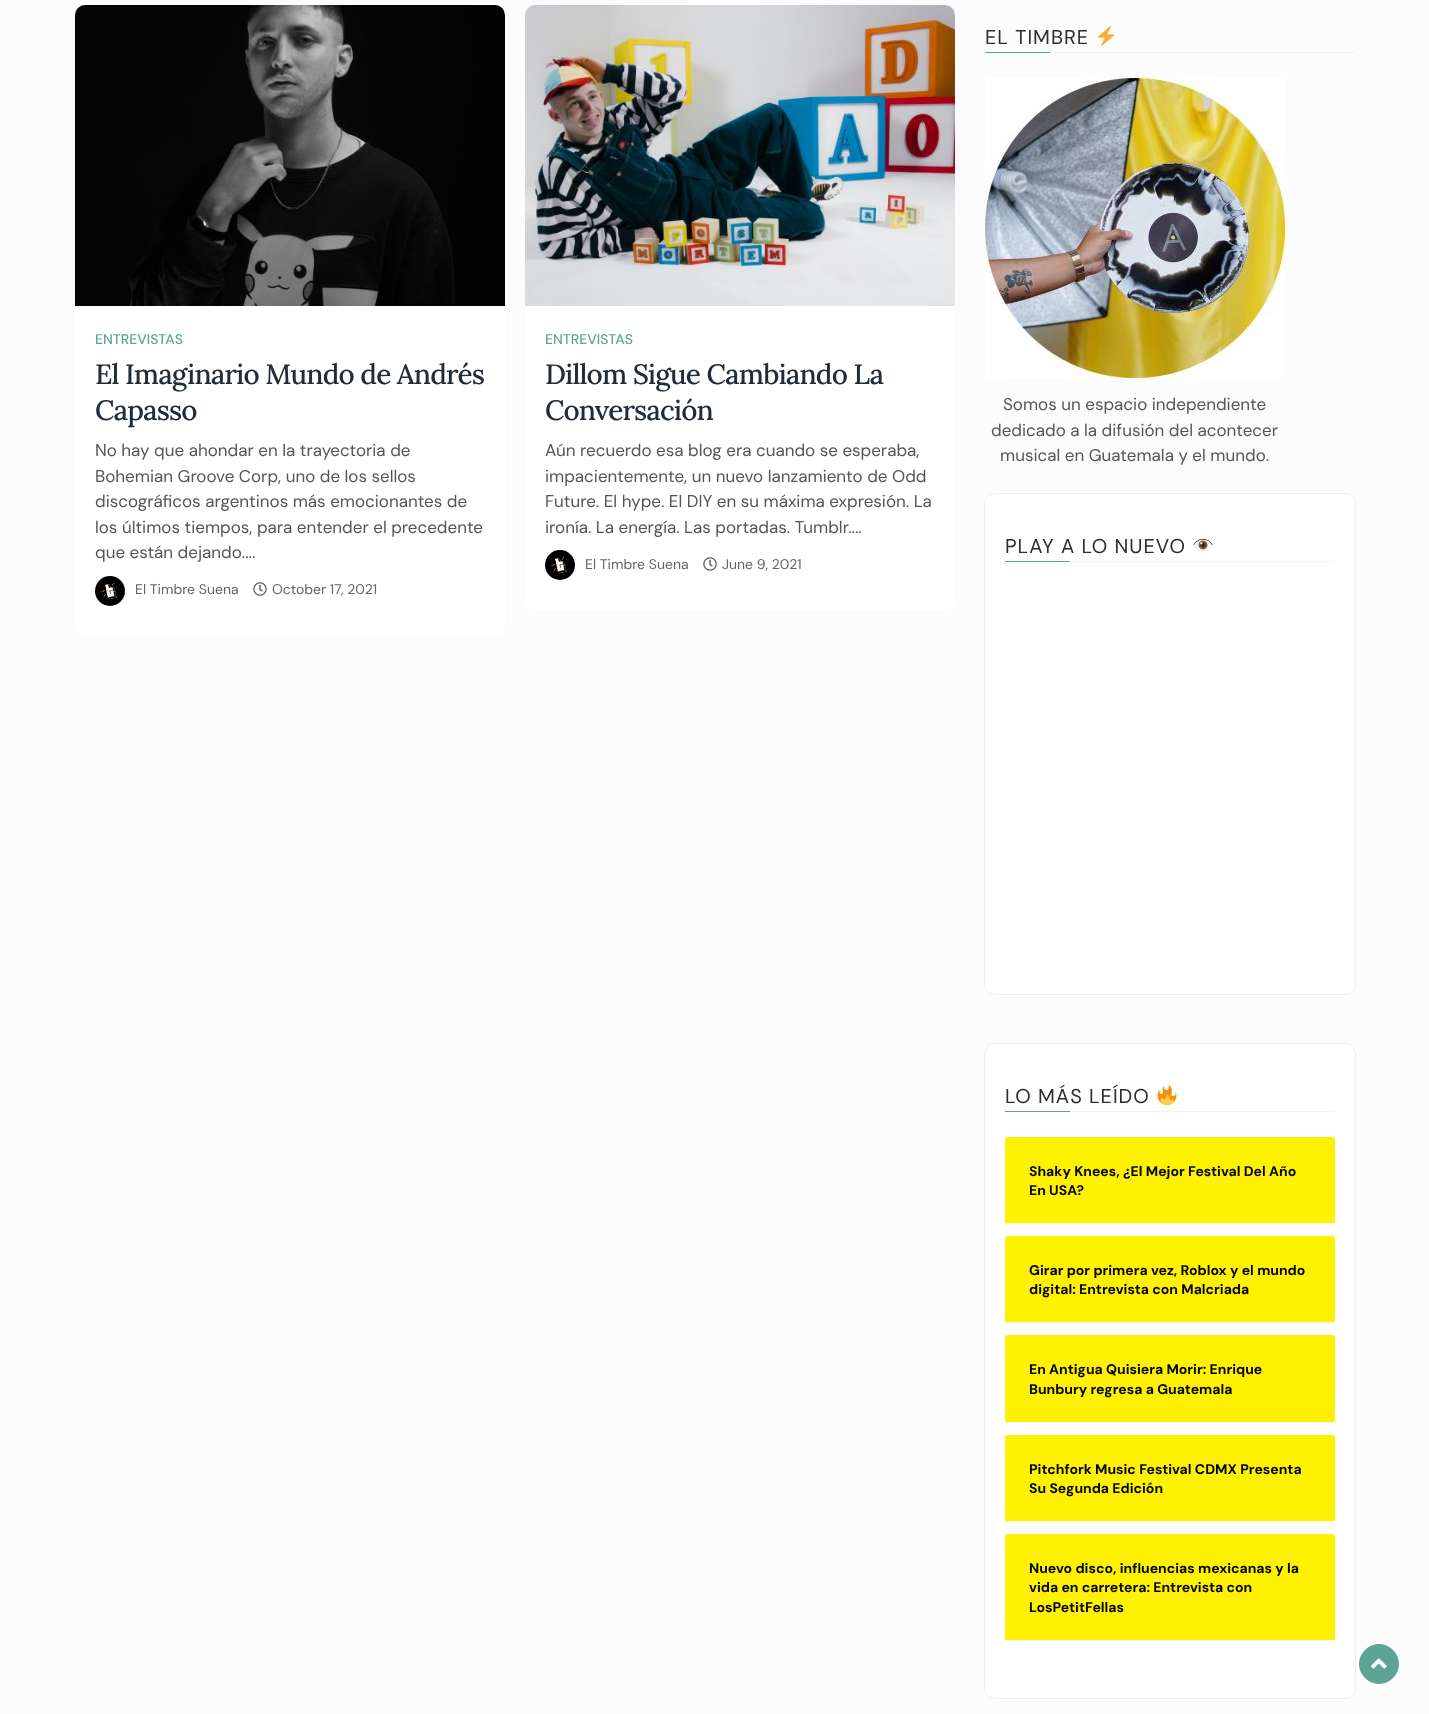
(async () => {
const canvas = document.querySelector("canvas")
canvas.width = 1429
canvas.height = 1714
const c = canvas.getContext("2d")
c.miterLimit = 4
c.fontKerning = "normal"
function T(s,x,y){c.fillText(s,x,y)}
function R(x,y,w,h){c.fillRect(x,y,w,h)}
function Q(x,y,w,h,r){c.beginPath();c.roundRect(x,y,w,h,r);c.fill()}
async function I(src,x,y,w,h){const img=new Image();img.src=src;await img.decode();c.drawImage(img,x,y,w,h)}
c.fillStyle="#fcfcfc"
R(0,0,1429,1714)
await I("1.png",75,5,430,301)
c.fillStyle="#fff"
c.beginPath()
c.roundRect(75,306,430,330,[0,0,10,10])
c.fill()
c.font="500 14px DM Sans"
c.fillStyle="#5ca595"
T("ENTREVISTAS",95,344)
c.letterSpacing="-0.9px"
c.font="500 28px Lora"
c.fillStyle="#202c39"
T("El Imaginario Mundo de Andrés",95,384)
T("Capasso",95,420)
c.letterSpacing="0px"
c.font="17px DM Sans"
c.fillStyle="#555"
T("No hay que ahondar en la trayectoria de",95,456)
T("Bohemian Groove Corp, uno de los sellos",95,482)
T("discográficos argentinos más emocionantes de",95,507)
T("los últimos tiempos, para entender el precedente",95,533)
T("que están dejando....",95,558)
await I("2.png",95,576,30,30)
c.font="14px DM Sans"
c.fillStyle="#646464"
T("El Timbre Suena",135,594)
await I("3.png",253,582,14,14)
T("October 17, 2021",272,594)
await I("4.png",525,5,430,301)
c.fillStyle="#fff"
c.beginPath()
c.roundRect(525,306,430,304,[0,0,10,10])
c.fill()
c.font="500 14px DM Sans"
c.fillStyle="#5ca595"
T("ENTREVISTAS",545,344)
c.letterSpacing="-0.9px"
c.font="500 28px Lora"
c.fillStyle="#202c39"
T("Dillom Sigue Cambiando La",545,384)
T("Conversación",545,420)
c.letterSpacing="0px"
c.font="17px DM Sans"
c.fillStyle="#555"
T("Aún recuerdo esa blog era cuando se esperaba,",545,456)
T("impacientemente, un nuevo lanzamiento de Odd",545,482)
T("Future. El hype. El DIY en su máxima expresión. La",545,507)
T("ironía. La energía. Las portadas. Tumblr....",545,533)
await I("5.png",545,550,30,30)
c.font="14px DM Sans"
c.fillStyle="#646464"
T("El Timbre Suena",585,569)
await I("3.png",703,557,14,14)
T("June 9, 2021",722,569)
c.fillStyle="#f2f2f2"
R(1050,52,305,1)
c.letterSpacing="1px"
c.font="20px DM Sans"
c.fillStyle="#2d2d2d"
T("EL TIMBRE",985,44)
await I("6.png",1097,26,18,20)
c.fillStyle="#5ca595"
R(985,52,65,1)
await I("7.png",985,78,300,300)
c.letterSpacing="0px"
c.font="17px DM Sans"
c.fillStyle="#555"
T("Somos un espacio independiente",1003,410)
T("dedicado a la difusión del acontecer",991,436)
T("musical en Guatemala y el mundo.",1000,461)
c.beginPath()
c.roundRect(984.5,493.5,371,501,10.5)
c.strokeStyle="#ededed"
c.stroke()
c.fillStyle="#fff"
Q(985,494,370,500,10)
c.fillStyle="#f2f2f2"
R(1070,561,265,1)
c.letterSpacing="1px"
c.font="20px DM Sans"
c.fillStyle="#2d2d2d"
T("PLAY A LO NUEVO",1005,553)
await I("8.png",1193,538,20,13)
c.fillStyle="#5ca595"
R(1005,561,65,1)
c.beginPath()
c.roundRect(984.5,1043.5,371,655,10.5)
c.stroke()
c.fillStyle="#fff"
Q(985,1044,370,654,10)
c.fillStyle="#f2f2f2"
R(1070,1111,265,1)
c.fillStyle="#2d2d2d"
T("LO MÁS LEÍDO",1005,1103)
await I("9.png",1157,1085,20,20)
c.fillStyle="#5ca595"
R(1005,1111,65,1)
c.fillStyle="#fff200"
Q(1005,1137,330,87,3)
c.fillStyle="#f6f6f6"
R(1007,1223,327,1)
c.letterSpacing="0px"
c.font="bold 14px DM Sans"
c.fillStyle="#000"
T("Shaky Knees, ¿El Mejor Festival Del Año",1029,1176)
T("En USA?",1029,1195)
c.fillStyle="#fff200"
Q(1005,1236,330,87,3)
c.fillStyle="#f6f6f6"
R(1007,1322,327,1)
c.fillStyle="#000"
T("Girar por primera vez, Roblox y el mundo",1029,1275)
T("digital: Entrevista con Malcriada",1029,1294)
c.fillStyle="#fff200"
Q(1005,1335,330,88,3)
c.fillStyle="#f6f6f6"
R(1007,1422,327,1)
c.fillStyle="#000"
T("En Antigua Quisiera Morir: Enrique",1029,1374)
T("Bunbury regresa a Guatemala",1029,1394)
c.fillStyle="#fff200"
Q(1005,1435,330,87,3)
c.fillStyle="#f6f6f6"
R(1007,1521,327,1)
c.fillStyle="#000"
T("Pitchfork Music Festival CDMX Presenta",1029,1474)
T("Su Segunda Edición",1029,1493)
c.fillStyle="#fff200"
Q(1005,1534,330,107,3)
c.fillStyle="#f6f6f6"
R(1007,1640,327,1)
c.fillStyle="#000"
T("Nuevo disco, influencias mexicanas y la",1029,1573)
T("vida en carretera: Entrevista con",1029,1592)
T("LosPetitFellas",1029,1612)
c.fillStyle="#5ca595"
c.beginPath()
c.arc(1379,1664,19.5,0,7)
c.fill()
c.strokeStyle="#5ca595"
c.stroke()
await I("10.png",1371,1658,16,11)
})()
